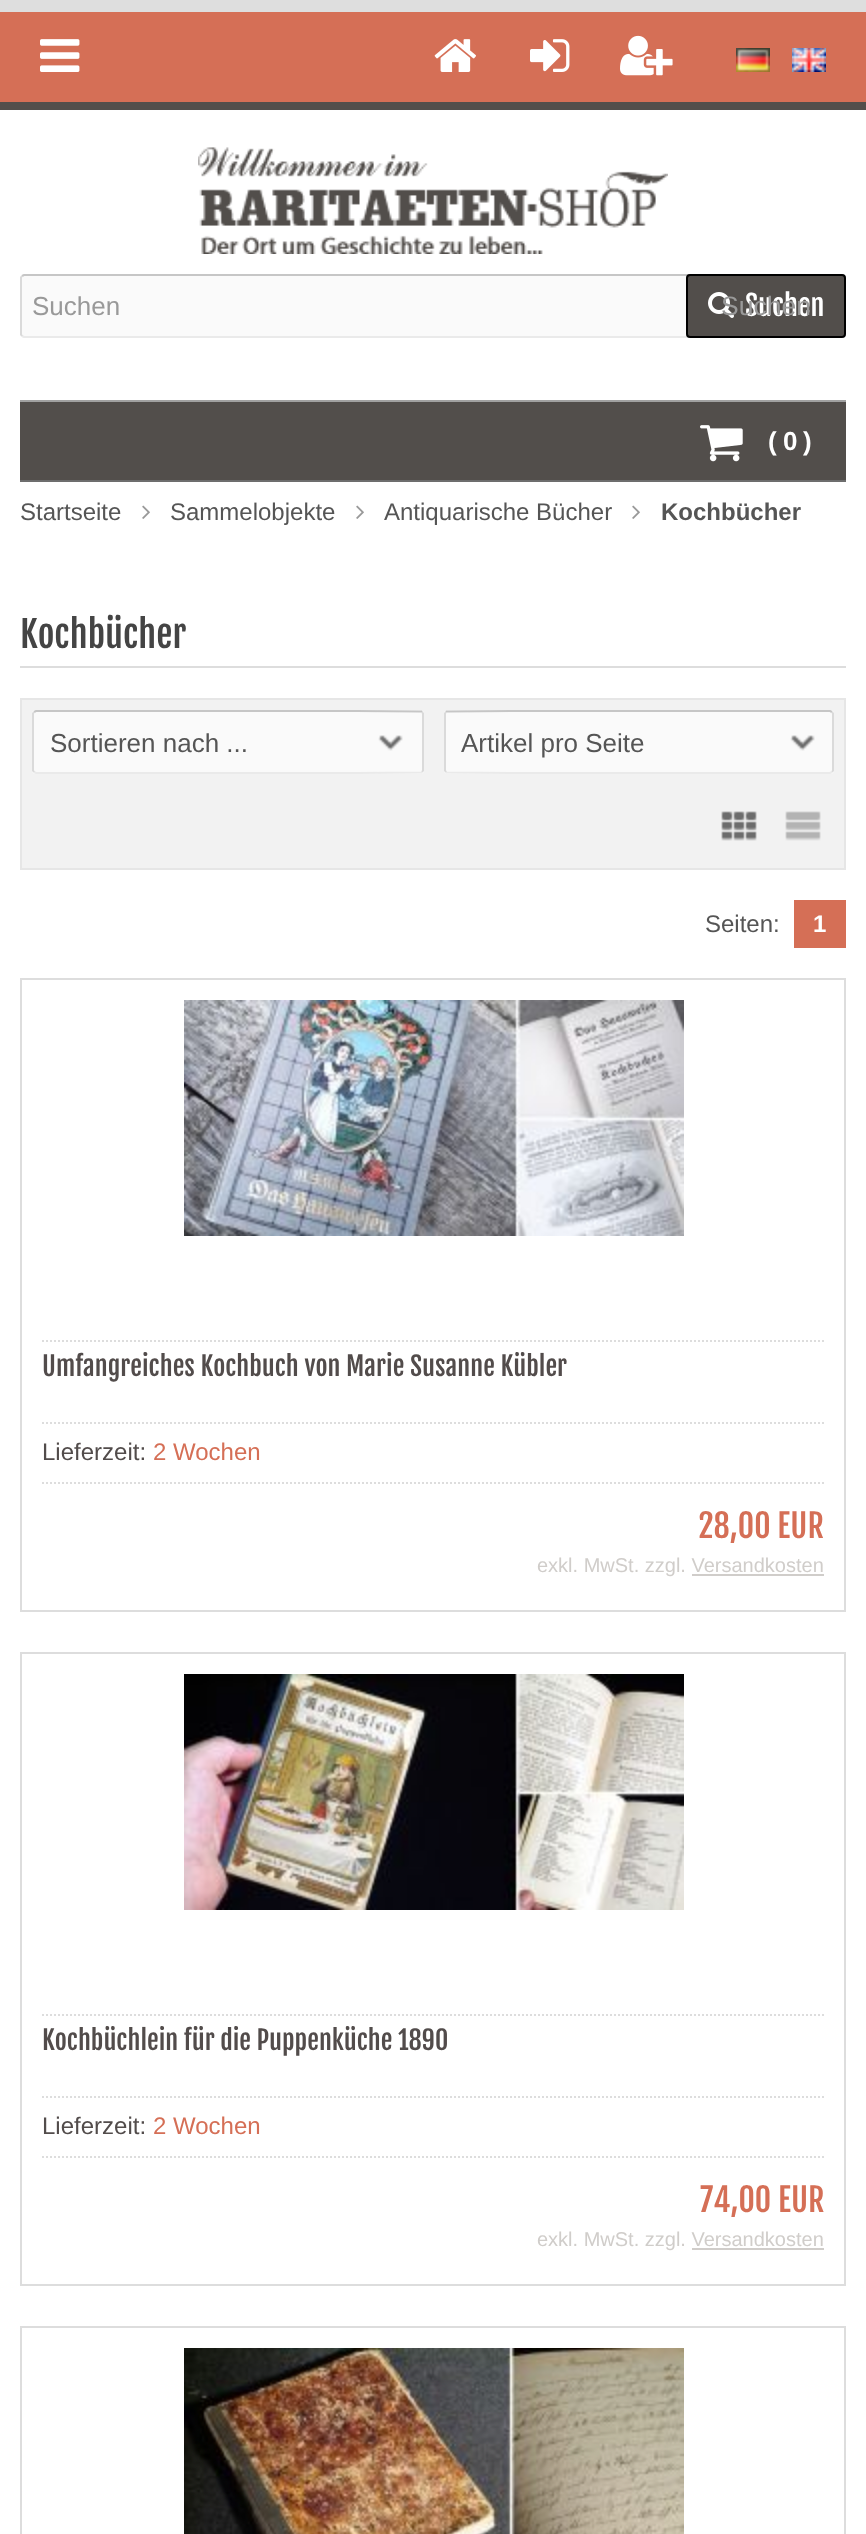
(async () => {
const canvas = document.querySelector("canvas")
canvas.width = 866
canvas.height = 2534
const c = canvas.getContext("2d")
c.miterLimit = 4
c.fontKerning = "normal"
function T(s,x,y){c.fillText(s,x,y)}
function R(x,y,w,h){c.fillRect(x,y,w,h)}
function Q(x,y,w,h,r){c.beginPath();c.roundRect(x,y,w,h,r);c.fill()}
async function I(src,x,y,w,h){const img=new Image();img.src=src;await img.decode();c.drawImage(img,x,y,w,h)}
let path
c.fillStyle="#fff"
R(0,0,866,2534)
c.fillStyle="#d56f56"
R(0,12,866,90)
c.fillStyle="#dedede"
R(0,0,866,12)
c.fillStyle="#524e4b"
R(0,102,866,8)
await I("1.png",40,39,40,33)
await I("2.png",434,39,42,33)
await I("3.png",530,39,40,33)
await I("4.png",620,35,53,41)
await I("5.png",736,48,34,24)
await I("6.png",792,48,34,24)
await I("7.png",198,110,470,144)
c.fillStyle="#fafafa"
Q(20,274,826,64,4)
path = new Path2D("M22 276l2-1h818l2 1")
c.strokeStyle="#c6c6c6"
c.lineWidth=2
c.stroke(path)
path = new Path2D("M844 276l1 1.5v57l-1 1.5")
c.strokeStyle="#dadada"
c.stroke(path)
path = new Path2D("M844 336l-2 1h-818l-2-1")
c.strokeStyle="#eaeaea"
c.stroke(path)
path = new Path2D("M22 336l-1-1.5v-57l1-1.5")
c.strokeStyle="#dadada"
c.stroke(path)
c.font="26px Arimo"
c.fillStyle="#999"
T("Suchen",32,315)
c.fillStyle="#524e4b"
c.beginPath()
c.roundRect(687,275,158,62,3)
c.fill()
c.strokeStyle="#000"
c.stroke()
await I("8.png",708,292,26,26)
c.font="28px Fjalla One"
c.fillStyle="#fff"
T("Suchen",745,316)
c.font="26.5px Liberation Sans"
c.fillStyle="#999"
T("Suchen",721,315)
c.fillStyle="#524e4b"
R(20,402,826,78)
c.fillStyle="#a1a1a1"
R(20,400,826,2)
c.fillStyle="#6d6d6d"
R(20,480,826,2)
await I("9.png",700,425,43,37)
c.font="bold 26px Arimo"
c.fillStyle="#fff"
T("(",768,450)
T("0",783,450)
T(")",803,450)
c.font="24px Arimo"
c.fillStyle="#555"
T("Startseite",20,520)
await I("10.png",142,505,8,14)
T("Sammelobjekte",170,520)
await I("10.png",356,505,8,14)
T("Antiquarische Bücher",384,520)
await I("10.png",632,505,8,14)
c.font="bold 24px Arimo"
T("Kochbücher",661,520)
c.fillStyle="#ddd"
R(20,666,826,2)
c.font="36px Fjalla One"
c.fillStyle="#444"
T("Kochbücher",20,648)
c.fillStyle="#f2f2f2"
c.beginPath()
c.rect(21,699,824,170)
c.fill()
c.strokeStyle="#e6e6e6"
c.stroke()
c.fillStyle="#fafafa"
Q(32,710,392,64,4)
path = new Path2D("M34 712l2-1h320l65.5 .5l.5 .5")
c.strokeStyle="#c6c6c6"
c.stroke(path)
path = new Path2D("M422 712l1 1.5v57l-1 1.5")
c.strokeStyle="#dadada"
c.stroke(path)
path = new Path2D("M422 772l-.5 .5l-65.5 .5h-320l-2-1")
c.strokeStyle="#eaeaea"
c.stroke(path)
path = new Path2D("M34 772l-1-1.5v-57l1-1.5")
c.strokeStyle="#dadada"
c.stroke(path)
c.font="26px Arimo"
c.fillStyle="#555"
T("Sortieren nach ...",50,752)
await I("11.png",378,735,25,16)
c.fillStyle="#fafafa"
Q(444,710,390,64,4)
path = new Path2D("M446 712l.5-.5l65-.5h318.5l2 1")
c.strokeStyle="#c6c6c6"
c.stroke(path)
path = new Path2D("M832 712l1 1.5v57l-1 1.5")
c.strokeStyle="#dadada"
c.stroke(path)
path = new Path2D("M832 772l-2 1h-318.5l-65-.5l-.5-.5")
c.strokeStyle="#eaeaea"
c.stroke(path)
path = new Path2D("M446 772l-1-1.5v-57l1-1.5")
c.strokeStyle="#dadada"
c.stroke(path)
c.fillStyle="#555"
T("Artikel pro Seite",461,752)
await I("11.png",790,735,25,16)
await I("12.png",721,811,36,30)
await I("13.png",785,811,36,30)
c.font="24px Arimo"
T("Seiten:",705,932)
c.fillStyle="#d56f56"
R(794,900,52,48)
c.font="bold 24px Arimo"
c.fillStyle="#fff"
T("1",813,932)
c.strokeStyle="#ddd"
c.strokeRect(21,979,824,632)
await I("14.png",184,1000,500,236)
path = new Path2D("M42 1341h782")
c.setLineDash([2,2])
c.stroke(path)
path = new Path2D("M42 1423h782")
c.stroke(path)
c.save()
c.beginPath()
c.rect(42,1352,782,60)
c.clip()
c.font="26px Fjalla One"
c.fillStyle="#524c4b"
T("Umfangreiches Kochbuch von Marie Susanne Kübler",42,1376)
c.restore()
path = new Path2D("M42 1483h782")
c.stroke(path)
c.font="24px Arimo"
c.fillStyle="#524c4b"
T("Lieferzeit:",42,1460)
c.fillStyle="#d56f56"
T("2 Wochen",153,1460)
c.font="32px Fjalla One"
T("28,00 EUR",698,1538)
c.font="20px Arimo"
c.fillStyle="#d0cdca"
T("exkl. MwSt. zzgl. Versandkosten",537,1572)
R(692,1574,132,2)
c.setLineDash([])
c.strokeRect(21,1653,824,632)
await I("15.png",184,1674,500,236)
path = new Path2D("M42 2015h782")
c.setLineDash([2,2])
c.stroke(path)
path = new Path2D("M42 2097h782")
c.stroke(path)
c.font="26px Fjalla One"
c.fillStyle="#524c4b"
T("Kochbüchlein für die Puppenküche 1890",42,2050)
path = new Path2D("M42 2157h782")
c.stroke(path)
c.font="24px Arimo"
T("Lieferzeit:",42,2134)
c.fillStyle="#d56f56"
T("2 Wochen",153,2134)
c.font="32px Fjalla One"
T("74,00 EUR",700,2212)
c.font="20px Arimo"
c.fillStyle="#d0cdca"
T("exkl. MwSt. zzgl. Versandkosten",537,2246)
R(692,2248,132,2)
c.setLineDash([])
c.strokeRect(21,2327,824,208)
await I("16.png",184,2348,500,186)
})()
